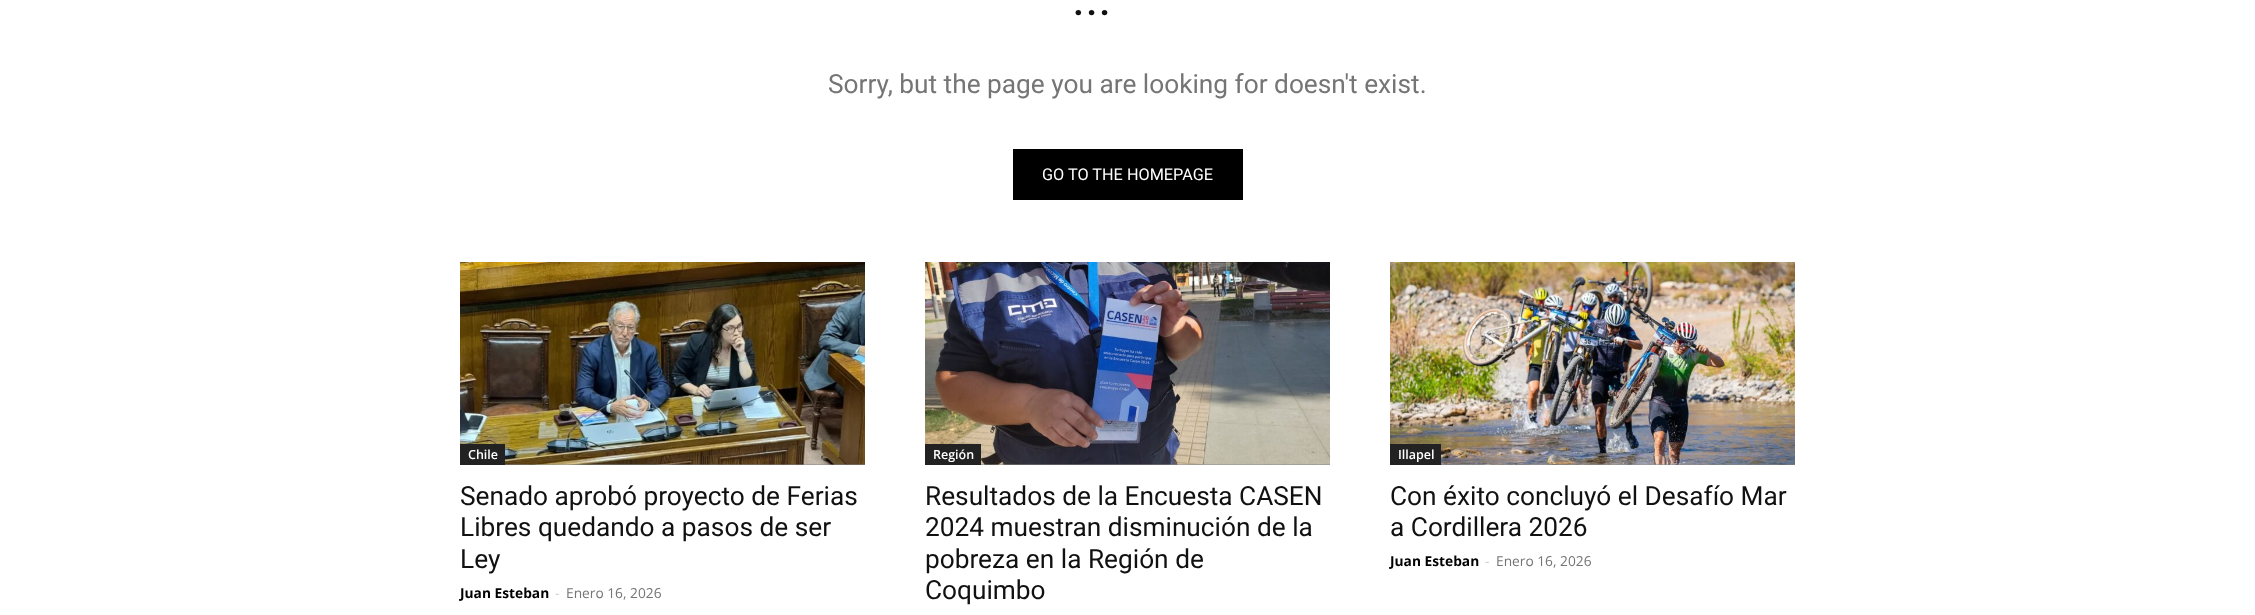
(async () => {
const canvas = document.querySelector("canvas")
canvas.width = 2255
canvas.height = 615
const c = canvas.getContext("2d")
c.miterLimit = 4
c.fontKerning = "normal"
function T(s,x,y){c.fillText(s,x,y)}
function R(x,y,w,h){c.fillRect(x,y,w,h)}
async function I(src,x,y,w,h){const img=new Image();img.src=src;await img.decode();c.drawImage(img,x,y,w,h)}
c.fillStyle="#fff"
R(0,0,2255,615)
c.font="50px Roboto"
c.fillStyle="#111"
T("...",1072,15)
c.font="26.25px Roboto"
c.fillStyle="#757575"
T("Sorry, but the page you are looking for doesn't exist.",828,93)
c.fillStyle="#000"
R(1013,149,230,51)
c.font="16.25px Roboto"
c.fillStyle="#fff"
T("GO TO THE HOMEPAGE",1042,180)
await I("2.png",505,464,360,1)
await I("1.png",460,262,405,203)
c.fillStyle="#222"
R(460,444,45,21)
c.font="600 12.5px Open Sans"
c.fillStyle="#fff"
T("Chile",468,459)
c.font="26.25px Roboto"
c.fillStyle="#111"
T("Senado aprobó proyecto de Ferias",460,505)
T("Libres quedando a pasos de ser",460,536)
T("Ley",460,568)
c.font="bold 13.75px Open Sans"
c.fillStyle="#000"
T("Juan Esteban",460,598)
c.font="13.75px Open Sans"
c.fillStyle="#ccc"
T("-",555,598)
c.fillStyle="#757575"
T("Enero 16, 2026",566,598)
await I("4.png",981,464,349,1)
await I("3.png",925,262,405,203)
c.fillStyle="#222"
R(925,444,56,21)
c.font="600 12.5px Open Sans"
c.fillStyle="#fff"
T("Región",933,459)
c.font="26.25px Roboto"
c.fillStyle="#111"
T("Resultados de la Encuesta CASEN",925,505)
T("2024 muestran disminución de la",925,536)
T("pobreza en la Región de",925,568)
T("Coquimbo",925,599)
await I("6.png",1441,464,354,1)
await I("5.png",1390,262,405,203)
c.fillStyle="#222"
R(1390,444,51,21)
c.font="600 12.5px Open Sans"
c.fillStyle="#fff"
T("Illapel",1398,459)
c.font="26.25px Roboto"
c.fillStyle="#111"
T("Con éxito concluyó el Desafío Mar",1390,505)
T("a Cordillera 2026",1390,536)
c.font="bold 13.75px Open Sans"
c.fillStyle="#000"
T("Juan Esteban",1390,566)
c.font="13.75px Open Sans"
c.fillStyle="#ccc"
T("-",1485,566)
c.fillStyle="#757575"
T("Enero 16, 2026",1496,566)
})()
